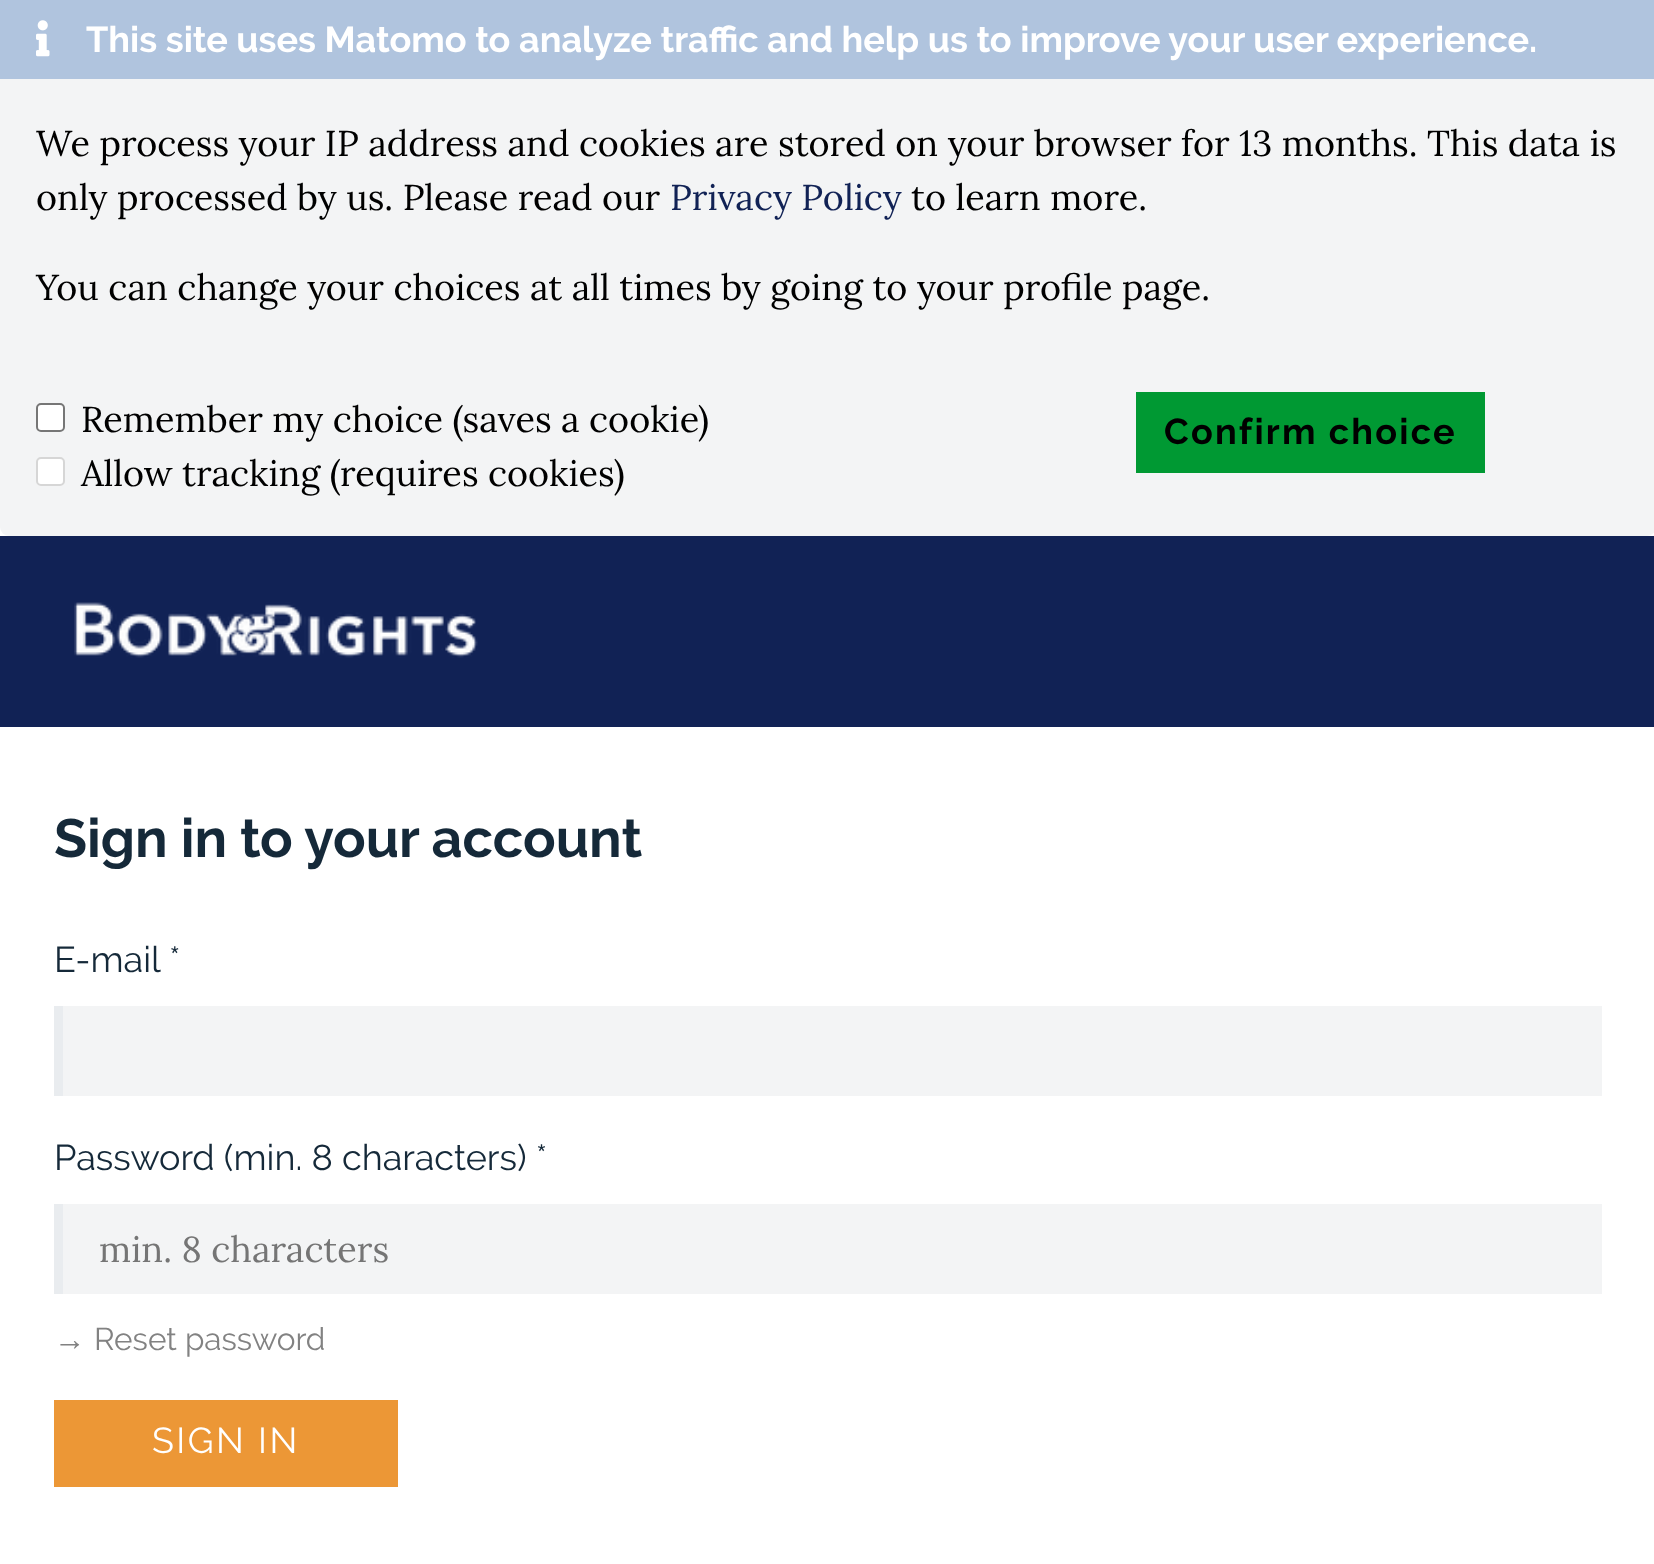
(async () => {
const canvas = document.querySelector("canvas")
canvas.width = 1654
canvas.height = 1564
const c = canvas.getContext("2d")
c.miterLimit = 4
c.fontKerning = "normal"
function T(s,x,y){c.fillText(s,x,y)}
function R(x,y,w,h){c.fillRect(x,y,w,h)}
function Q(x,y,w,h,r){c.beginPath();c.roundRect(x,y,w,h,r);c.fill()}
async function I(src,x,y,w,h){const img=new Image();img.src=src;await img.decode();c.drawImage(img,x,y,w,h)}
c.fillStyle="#fff"
R(0,0,1654,1564)
c.fillStyle="#f3f4f5"
Q(0,0,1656,536,9)
c.fillStyle="#b0c4de"
R(0,0,1654,79)
await I("1.png",36,20,14,37)
c.font="bold 36px Raleway"
c.fillStyle="#fff"
T("This site uses Matomo to analyze traffic and help us to improve your user experience.",86,52)
c.font="36px Lora"
c.fillStyle="#000"
T("We process your IP address and cookies are stored on your browser for 13 months. This data is",36,156)
T("only processed by us. Please read our",36,210)
c.fillStyle="#125"
T("Privacy Policy",670,210)
c.fillStyle="#000"
T("to learn more.",911,210)
T("You can change your choices at all times by going to your profile page.",36,300)
c.fillStyle="#fff"
c.beginPath()
c.roundRect(37,404,27,27,4)
c.fill()
c.strokeStyle="#767676"
c.lineWidth=2
c.stroke()
c.fillStyle="#000"
T("Remember my choice (saves a cookie)",81,432)
c.fillStyle="#fff"
Q(36,457,29,29,5)
c.beginPath()
c.roundRect(37,458,27,27,4)
c.strokeStyle="#7676764d"
c.stroke()
c.fillStyle="#000"
T("Allow tracking (requires cookies)",81,486)
c.fillStyle="#093"
R(1136,392,349,81)
c.letterSpacing="2.25px"
c.font="bold 36px Raleway"
c.fillStyle="#000"
T("Confirm choice",1164,444)
c.fillStyle="#125"
R(0,536,1654,191)
await I("2.png",74,602,404,56)
c.letterSpacing="0px"
c.font="bold 54px Raleway"
c.fillStyle="#152939"
T("Sign in to your account",54,857)
c.font="36px Raleway"
T("E-mail",54,972)
T("*",169,972)
c.fillStyle="#f3f4f5"
R(63,1006,1539,90)
c.fillStyle="#e9ecef"
R(54,1006,9,90)
c.fillStyle="#152939"
T("Password (min. 8 characters) *",54,1170)
c.fillStyle="#f3f4f5"
R(63,1204,1539,90)
c.fillStyle="#e9ecef"
R(54,1204,9,90)
c.font="36px Lora"
c.fillStyle="#757575"
T("min. 8 characters",99,1262)
c.font="31.5px Liberation Sans"
c.fillStyle="#828282"
T("→",54,1350)
c.font="31.5px Raleway"
T("Reset password",94,1350)
c.fillStyle="#ec9736"
R(54,1400,344,87)
c.letterSpacing="2.5px"
c.font="36px Raleway"
c.fillStyle="#fff"
T("SIGN IN",152,1453)
})()
